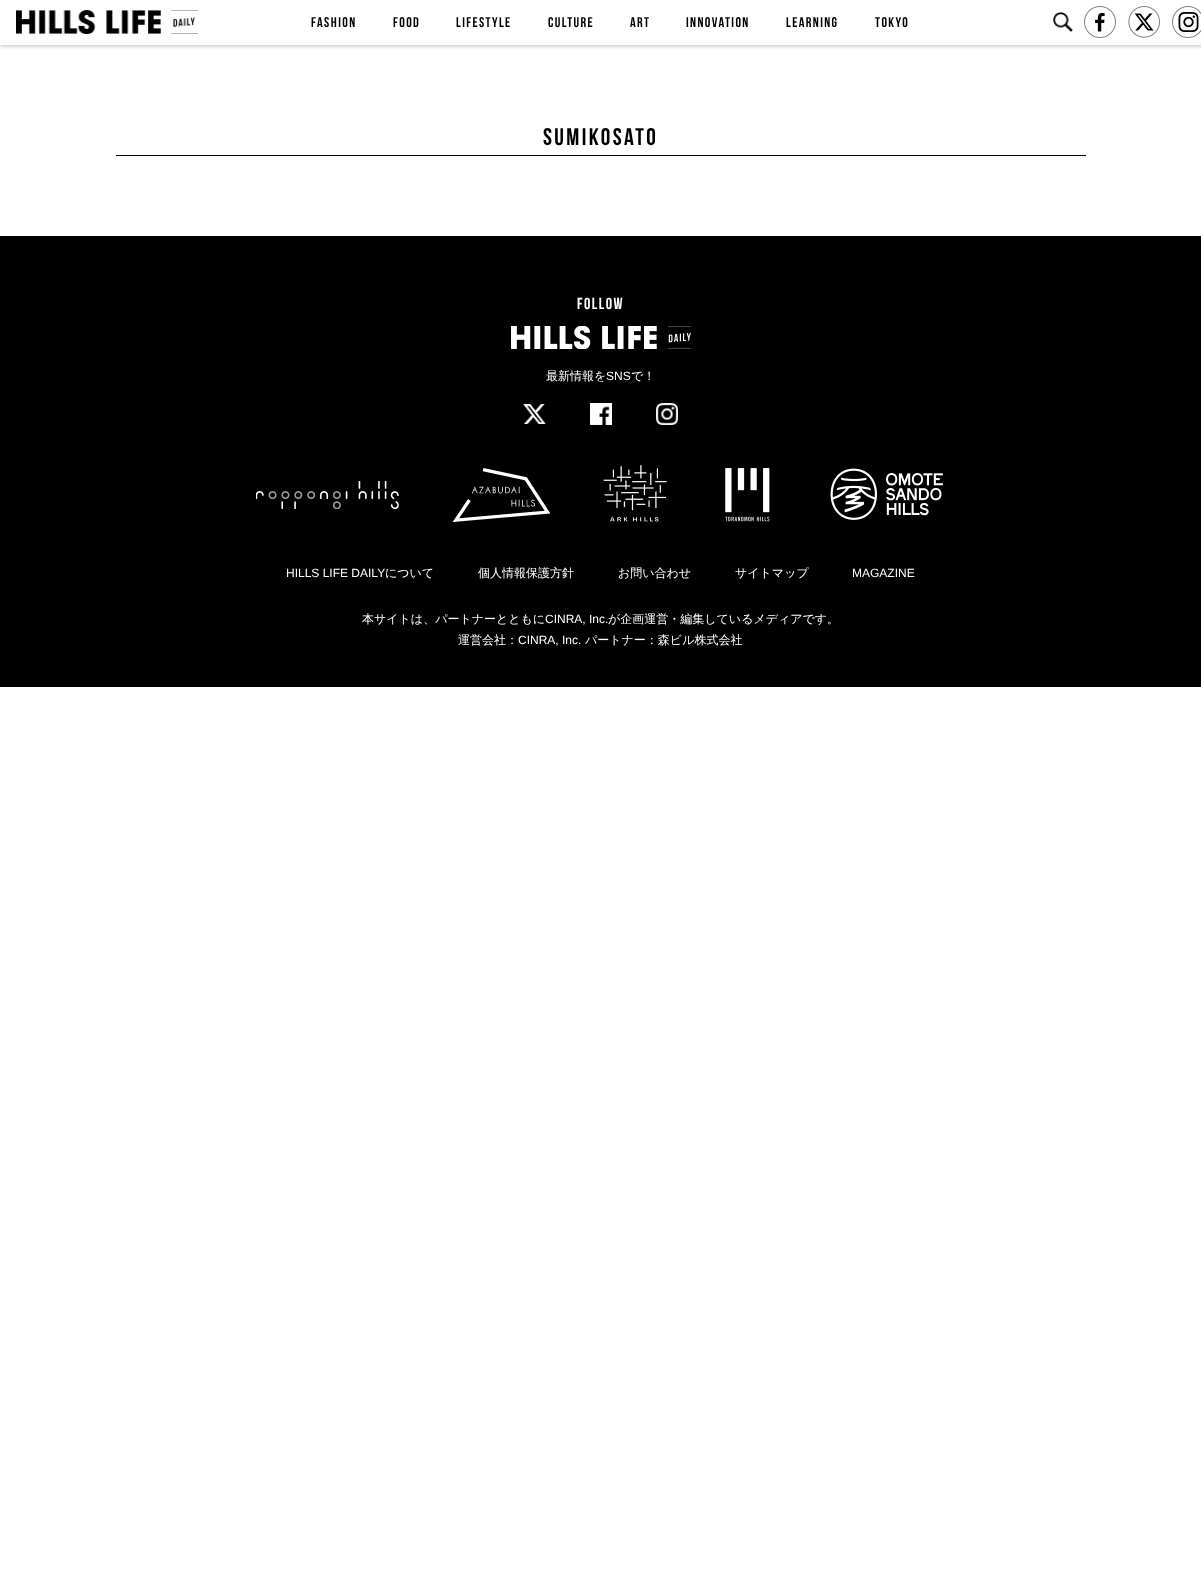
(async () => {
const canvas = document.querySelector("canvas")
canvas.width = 1201
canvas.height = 1587
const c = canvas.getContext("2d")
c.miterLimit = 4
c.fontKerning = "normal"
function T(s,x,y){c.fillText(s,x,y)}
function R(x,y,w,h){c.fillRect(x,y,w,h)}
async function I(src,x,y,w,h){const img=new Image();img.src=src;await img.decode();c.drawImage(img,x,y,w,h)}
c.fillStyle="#fff"
R(0,0,1201,1587)
c.save()
c.beginPath()
c.rect(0,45,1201,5)
c.clip()
c.fillStyle="#a0a0a0"
c.filter="blur(2.5px)"
c.beginPath()
c.rect(0,0,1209,45)
c.fill()
c.filter="none"
c.restore()
await I("1.png",16,10,145,24)
await I("2.png",173,17,22,10)
c.fillStyle="#b3b3b3"
R(171,10,27,1)
R(171,33,27,1)
c.letterSpacing="1.4px"
c.font="14px Bebas Neue"
c.fillStyle="#000"
T("FASHION",311,27)
T("FOOD",393,27)
T("LIFESTYLE",456,27)
T("CULTURE",548,27)
T("ART",630,27)
T("INNOVATION",686,27)
T("LEARNING",786,27)
T("TOKYO",875,27)
await I("3.png",1053,12,20,20)
await I("4.png",1084,6,32,32)
await I("5.png",1128,6,32,32)
await I("6.png",1172,6,29,32)
R(116,155,970,1)
c.letterSpacing="2.4px"
c.font="24px Bebas Neue"
T("sumikosato",543,145)
R(0,236,1201,451)
c.letterSpacing="1.5px"
c.font="16px Bebas Neue"
c.fillStyle="#fff"
T("FOLLOW",577,309)
await I("7.png",511,326,180,23)
c.letterSpacing="0px"
c.font="500 12px WenQuanYi Zen Hei"
T("最新情報を",546,380)
c.font="12px Liberation Sans"
T("SNS",606,380)
c.font="500 12px WenQuanYi Zen Hei"
T("で！",631,380)
await I("8.png",523,404,23,20)
await I("9.png",590,403,22,22)
await I("10.png",656,403,22,22)
await I("11.png",255,481,144,28)
await I("12.png",452,468,99,54)
await I("13.png",603,465,64,57)
await I("14.png",725,468,45,54)
await I("15.png",830,468,113,52)
c.font="12px Liberation Sans"
T("HILLS LIFE DAILY",286,577)
c.font="500 12px WenQuanYi Zen Hei"
T("について",385,577)
T("個人情報保護方針",478,577)
T("お問い合わせ",618,577)
T("サイトマップ",735,577)
c.font="12px Liberation Sans"
T("MAGAZINE",852,577)
c.font="500 12px WenQuanYi Zen Hei"
T("本サイトは、パートナーとともに",362,623)
c.font="12px Liberation Sans"
T("CINRA, Inc.",545,623)
c.font="500 12px WenQuanYi Zen Hei"
T("が企画運営・編集しているメディアです。",608,623)
T("運営会社：",458,644)
c.font="12px Liberation Sans"
T("CINRA, Inc.",518,644)
c.font="500 12px WenQuanYi Zen Hei"
T("パートナー：森ビル株式会社",585,644)
})()
